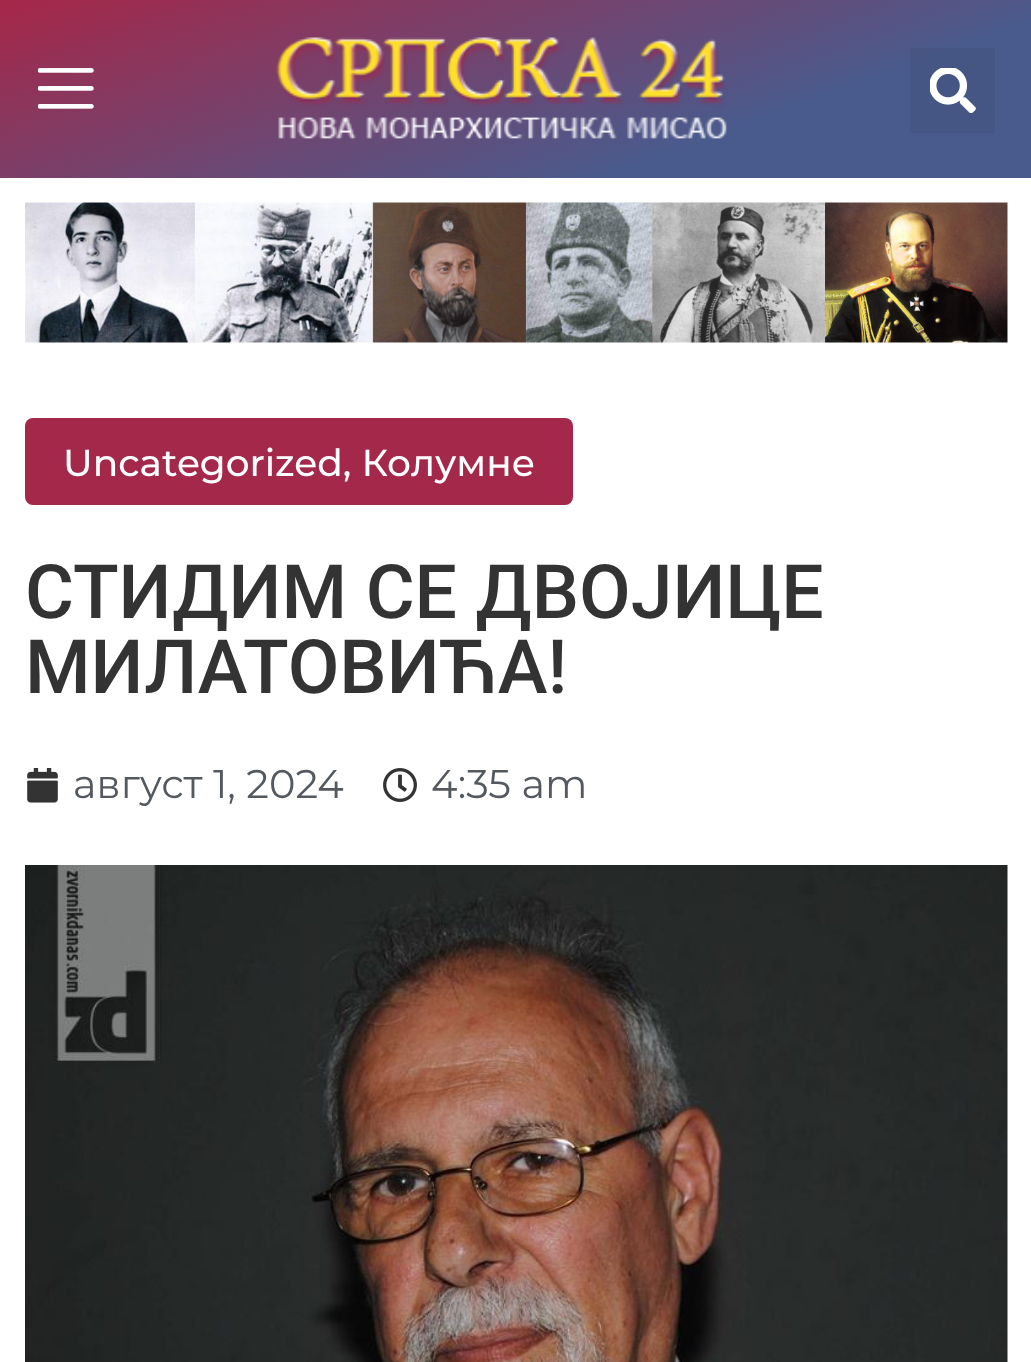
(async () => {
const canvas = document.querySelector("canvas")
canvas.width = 1031
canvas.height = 1362
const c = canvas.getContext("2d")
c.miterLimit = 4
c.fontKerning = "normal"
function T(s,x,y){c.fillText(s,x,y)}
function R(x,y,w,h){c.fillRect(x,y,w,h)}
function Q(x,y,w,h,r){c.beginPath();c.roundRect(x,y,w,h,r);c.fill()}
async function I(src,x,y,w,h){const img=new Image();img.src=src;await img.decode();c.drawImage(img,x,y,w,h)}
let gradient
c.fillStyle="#fff"
R(0,0,1031,1362)
gradient = c.createLinearGradient(427,-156,605,333)
gradient.addColorStop(.02,"#a4284a")
gradient.addColorStop(.72,"#495b8d")
c.fillStyle = gradient
R(0,0,1031,178)
await I("1.png",38,68,56,41)
await I("2.png",276,37,451,102)
c.fillStyle="#0000000d"
R(910,48,85,85)
await I("3.png",930,68,46,45)
await I("4.png",25,202,983,141)
c.fillStyle="#a4284a"
Q(25,418,548,87,8)
c.font="500 37.5px Montserrat"
c.fillStyle="#fff"
T("Uncategorized, Колумне",63,476)
c.font="500 75px Roboto"
c.fillStyle="#333"
T("СТИДИМ СЕ ДВОЈИЦЕ",25,618)
T("МИЛАТОВИЋА!",25,693)
await I("5.png",27,768,31,35)
c.font="40px Montserrat"
c.fillStyle="#54595f"
T("август 1, 2024",73,798)
await I("6.png",383,768,34,34)
T("4:35 am",431,798)
await I("7.png",25,865,983,497)
})()
